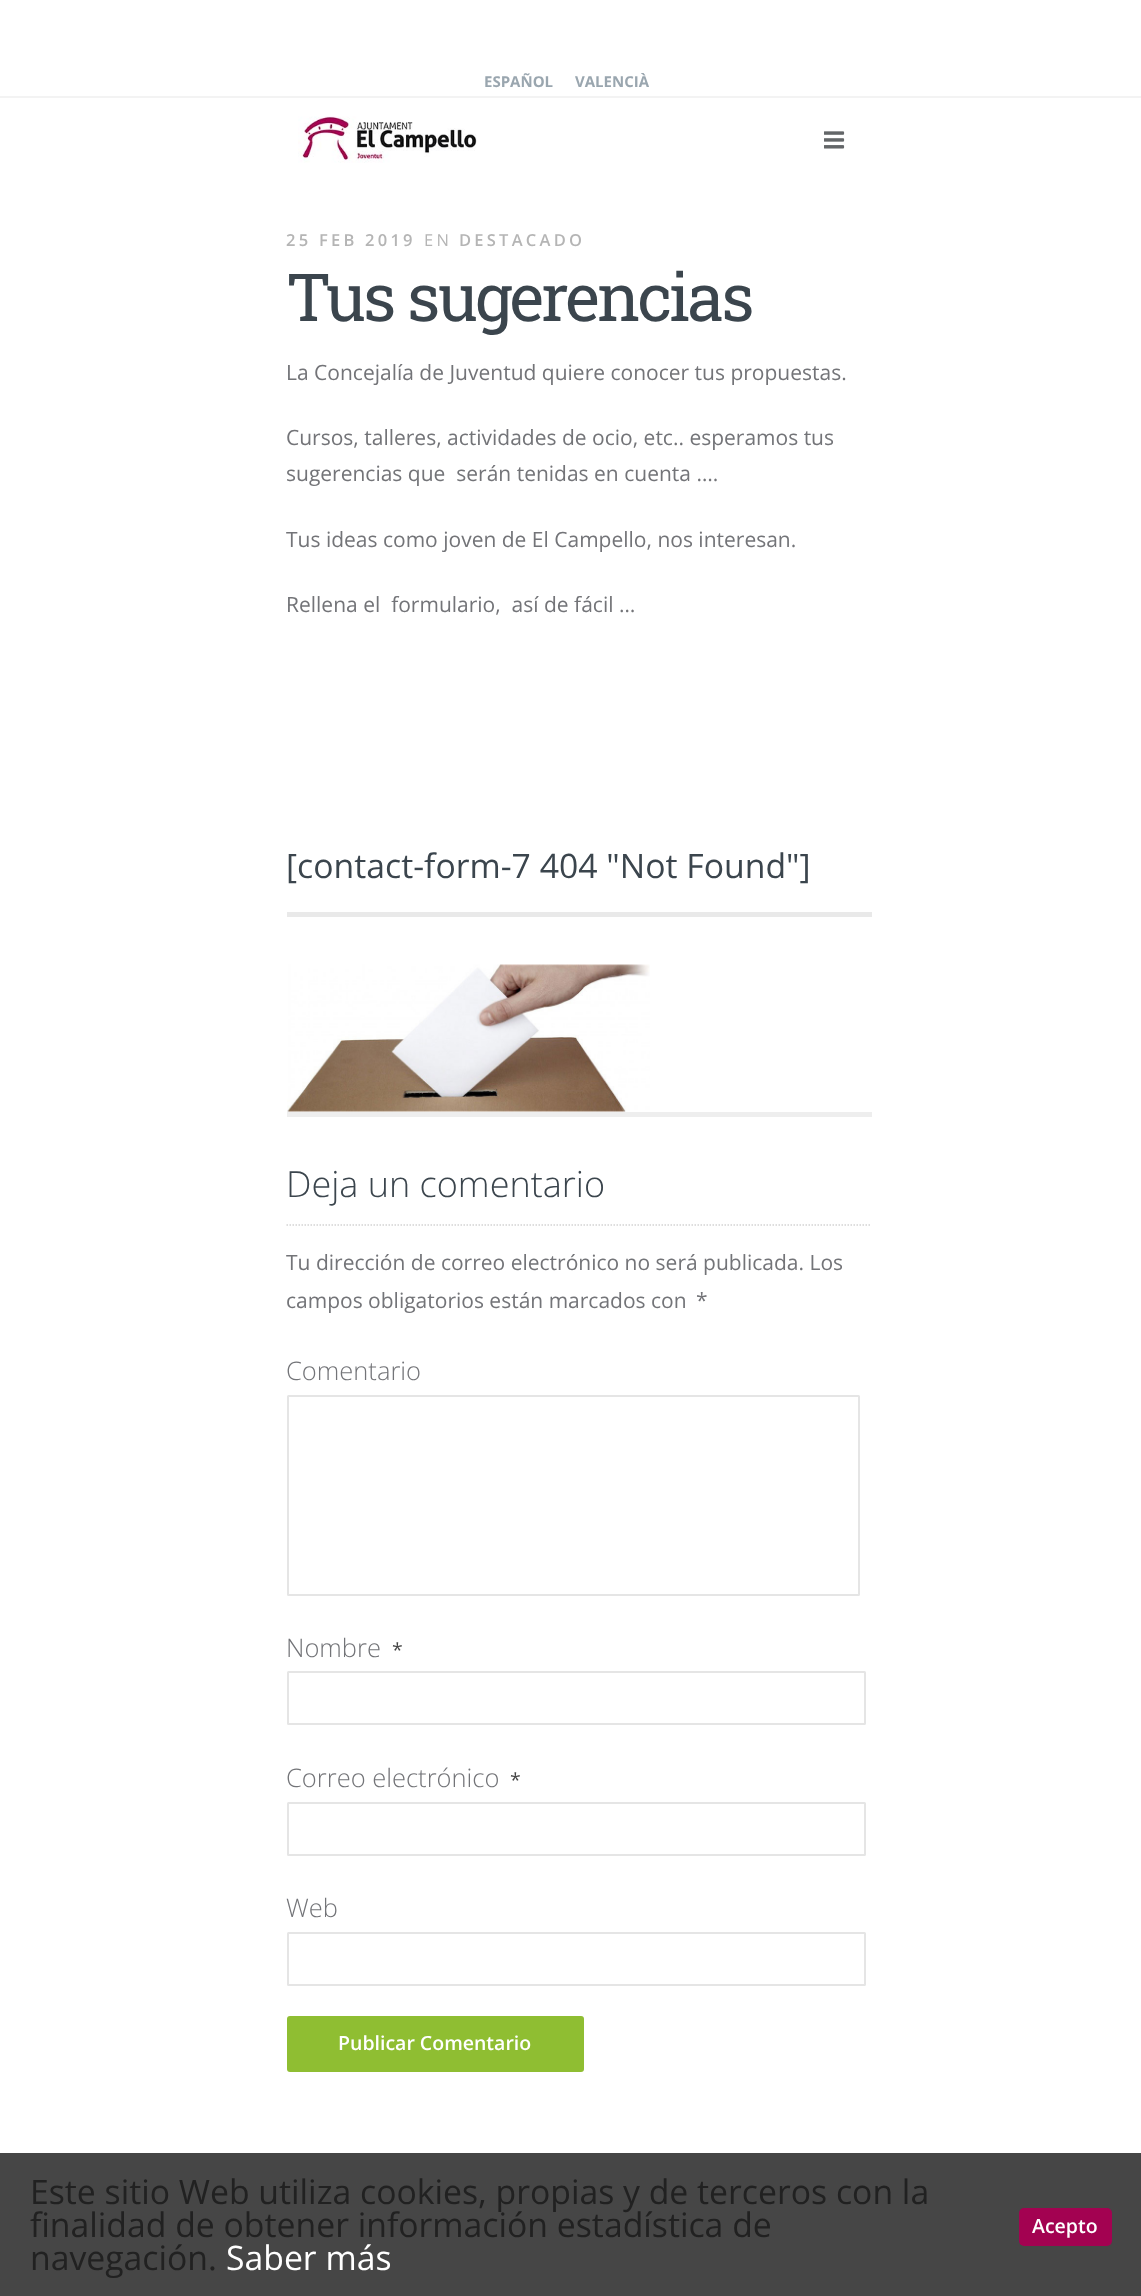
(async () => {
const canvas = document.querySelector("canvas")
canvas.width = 1141
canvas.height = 2296
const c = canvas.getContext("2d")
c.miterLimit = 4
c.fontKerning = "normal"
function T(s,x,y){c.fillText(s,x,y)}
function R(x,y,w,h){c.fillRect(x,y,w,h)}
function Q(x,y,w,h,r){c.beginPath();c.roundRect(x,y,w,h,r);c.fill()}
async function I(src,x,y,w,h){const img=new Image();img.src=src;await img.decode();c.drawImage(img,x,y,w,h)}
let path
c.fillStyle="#fff"
R(0,0,1141,2296)
c.fillStyle="#f3f3f3"
R(0,96,1141,2)
c.font="bold 15px Open Sans"
c.fillStyle="#9aa6af"
T("ESPAÑOL",484,87)
T("VALENCIÀ",575,87)
await I("1.png",298,116,179,47)
await I("2.png",824,131,21,18)
c.letterSpacing="3.25px"
c.font="600 16.5px Open Sans"
c.fillStyle="#b5b5b5"
T("25 FEB 2019",286,246)
c.font="16.5px Open Sans"
T("EN",424,246)
c.font="600 16.5px Open Sans"
T("DESTACADO",459,246)
c.letterSpacing="-2.6px"
c.font="66px Roboto Slab"
c.fillStyle="#3b454d"
T("Tus sugerencias",286,321)
c.letterSpacing="0px"
c.font="21px Open Sans"
c.fillStyle="#737478"
T("La Concejalía de Juventud quiere conocer tus propuestas.",286,380)
T("Cursos, talleres, actividades de ocio, etc.. esperamos tus",286,445)
T("sugerencias que  serán tenidas en cuenta ….",286,481)
T("Tus ideas como joven de El Campello, nos interesan.",286,547)
T("Rellena el  formulario,  así de fácil …",286,612)
c.font="33.75px Open Sans"
c.fillStyle="#3b454d"
T("[contact-form-7 404 \"Not Found\"]",286,878)
c.fillStyle="#e9e9e9"
R(287,912,585,5)
c.fillStyle="#eee"
R(287,1112,585,5)
await I("3.png",287,964,363,148)
c.font="300 36px Open Sans"
c.fillStyle="#3b454d"
T("Deja un comentario",286,1197)
path = new Path2D("M286.5 1225h585")
c.strokeStyle="#d3d3d3"
c.lineWidth=1.5
c.setLineDash([1.5,1.5])
c.stroke(path)
c.font="21px Open Sans"
c.fillStyle="#737478"
T("Tu dirección de correo electrónico no será publicada. Los",286,1270)
T("campos obligatorios están marcados con",286,1308)
T("*",696,1308)
c.font="300 25.5px Open Sans"
T("Comentario",286,1380)
c.beginPath()
c.roundRect(288,1396,571,199,.5)
c.strokeStyle="#e5e5e5"
c.lineWidth=2
c.setLineDash([])
c.stroke()
T("Nombre",286,1657)
c.font="19.5px Open Sans"
c.fillStyle="#444"
T("*",392,1657)
c.beginPath()
c.roundRect(288,1672,577,52,.5)
c.stroke()
c.font="300 25.5px Open Sans"
c.fillStyle="#737478"
T("Correo electrónico",286,1787)
c.font="19.5px Open Sans"
c.fillStyle="#444"
T("*",510,1787)
c.beginPath()
c.roundRect(288,1803,577,52,.5)
c.stroke()
c.font="300 25.5px Open Sans"
c.fillStyle="#737478"
T("Web",286,1917)
c.beginPath()
c.roundRect(288,1933,577,52,.5)
c.stroke()
c.fillStyle="#8fbe32"
Q(287,2016,297,56,3)
c.font="600 19.5px Open Sans"
c.fillStyle="#fff"
T("Publicar Comentario",338,2050)
c.fillStyle="#464646"
R(0,2153,1141,143)
c.font="33.75px Open Sans"
c.fillStyle="#212121"
T("Este sitio Web utiliza cookies, propias y de terceros con la",30,2204)
T("finalidad de obtener información estadística de",30,2237)
T("navegación.",30,2270)
c.fillStyle="#fff"
T("Saber más",226,2270)
c.fillStyle="#a30251"
Q(1019,2208,93,38,5)
c.font="600 19.5px Open Sans"
c.fillStyle="#fff"
T("Acepto",1032,2233)
})()
